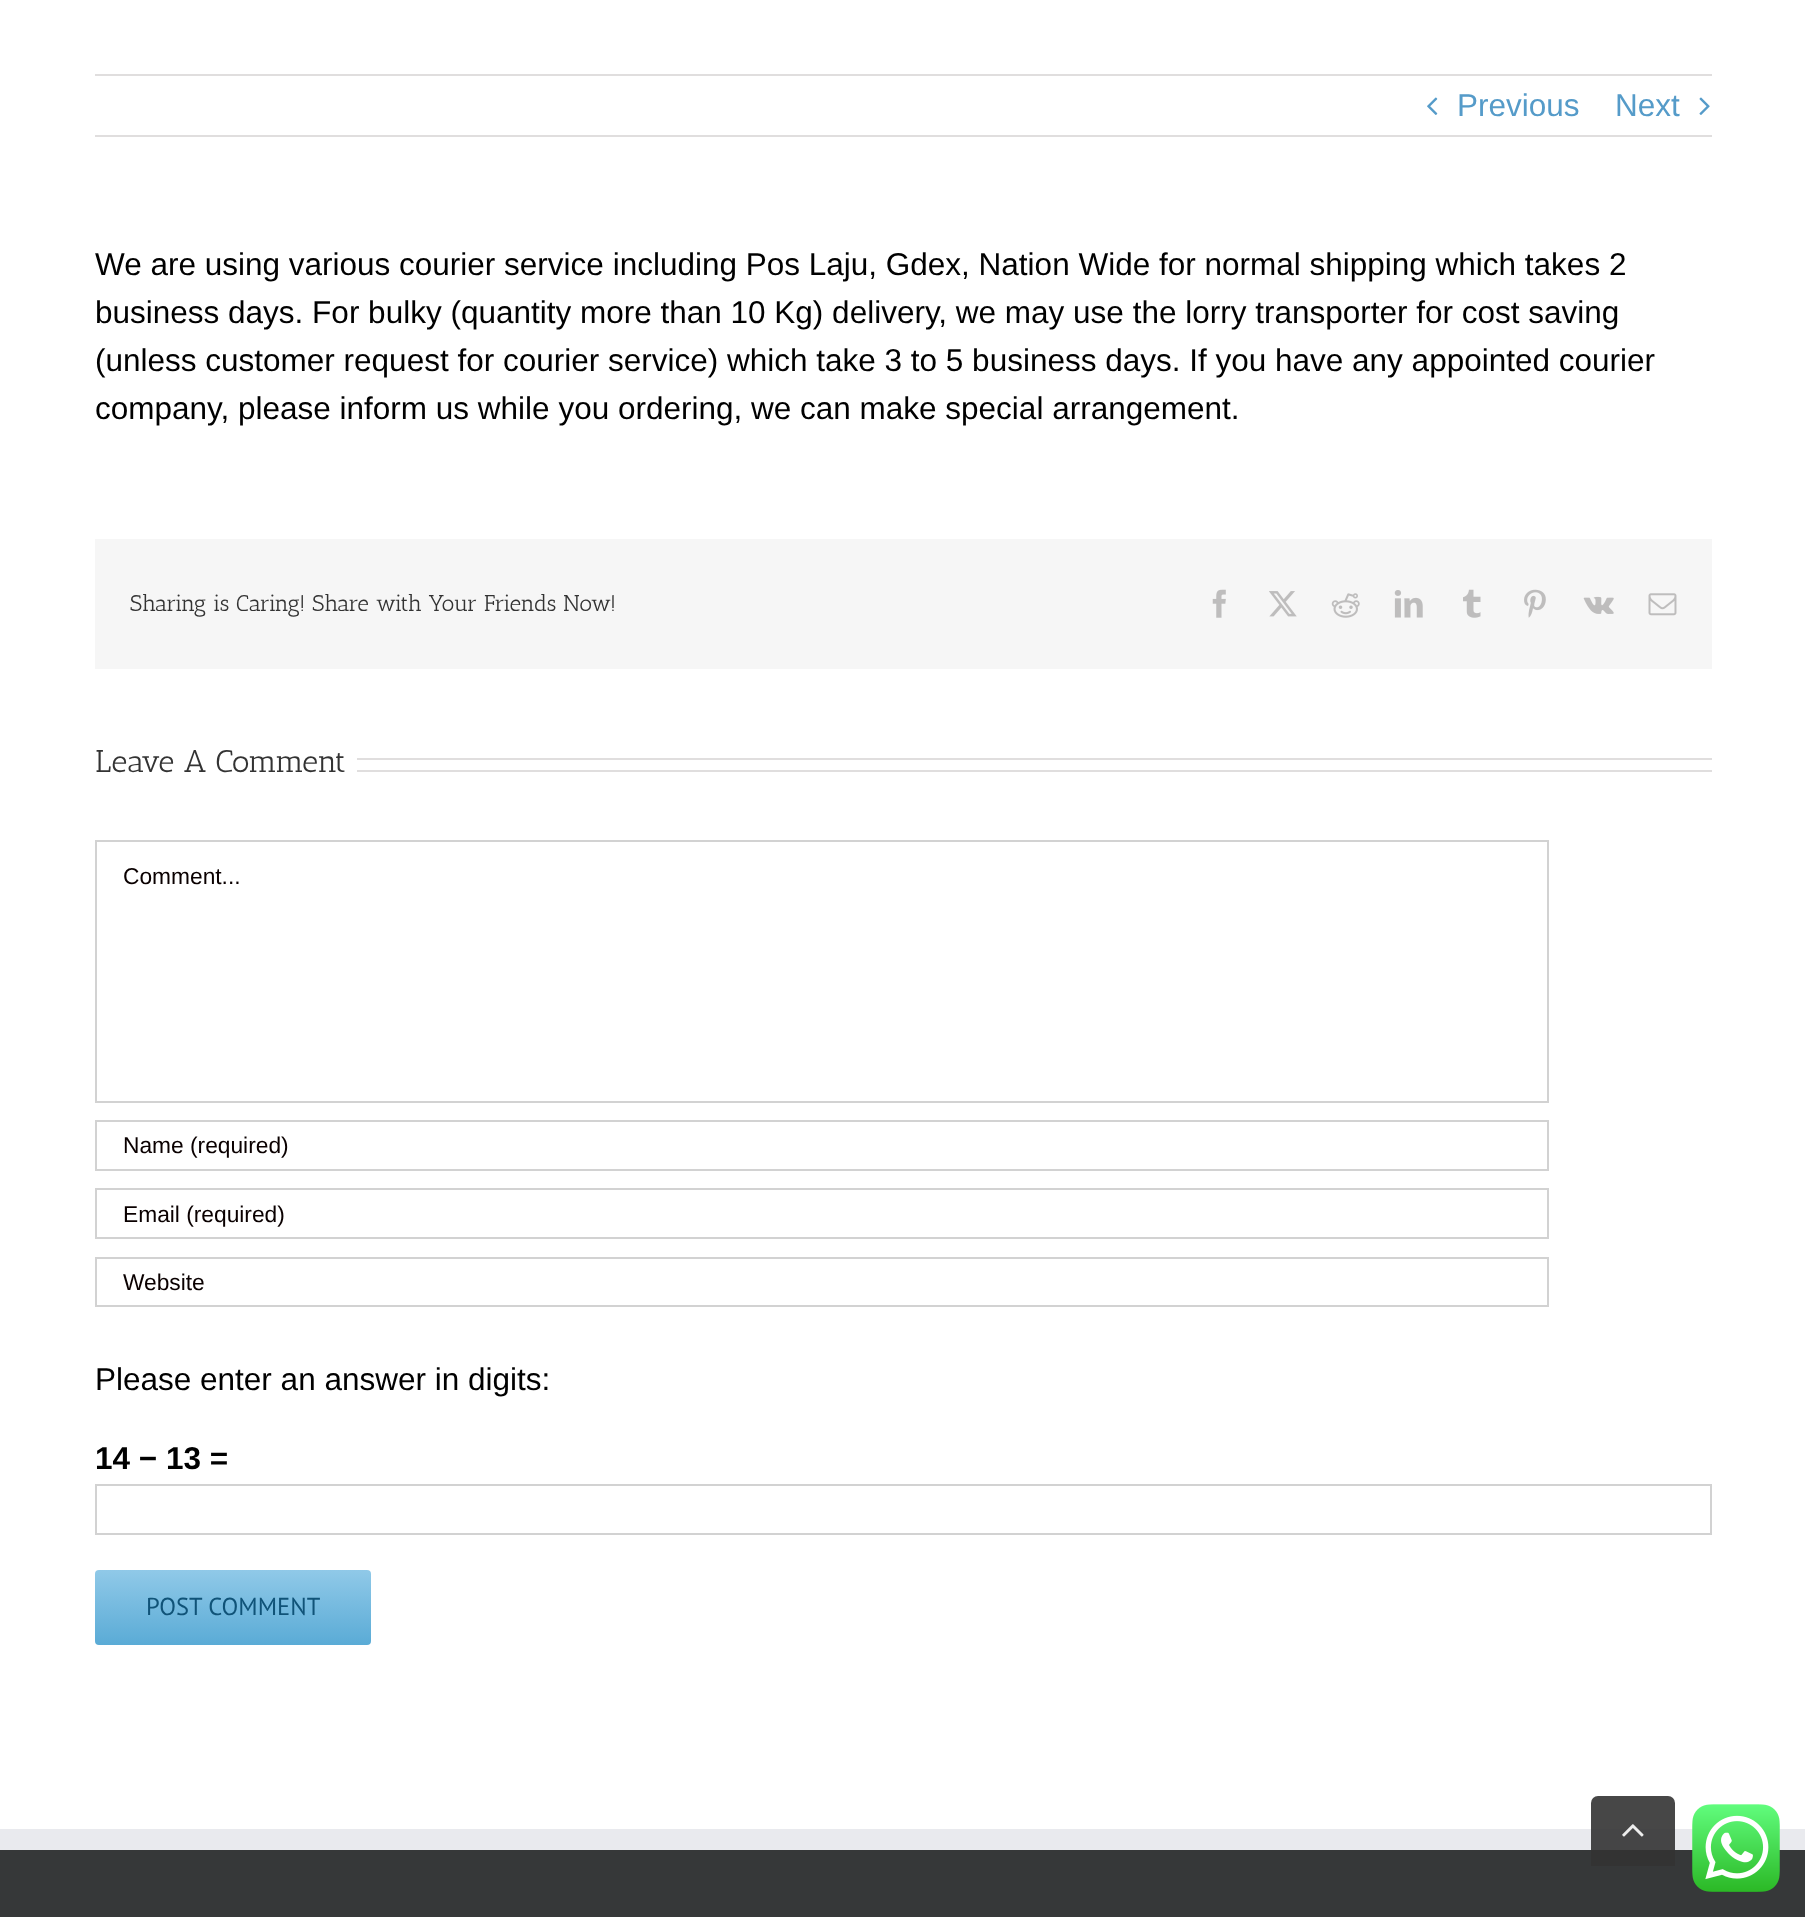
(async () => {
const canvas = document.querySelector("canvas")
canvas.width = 1805
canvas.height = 1917
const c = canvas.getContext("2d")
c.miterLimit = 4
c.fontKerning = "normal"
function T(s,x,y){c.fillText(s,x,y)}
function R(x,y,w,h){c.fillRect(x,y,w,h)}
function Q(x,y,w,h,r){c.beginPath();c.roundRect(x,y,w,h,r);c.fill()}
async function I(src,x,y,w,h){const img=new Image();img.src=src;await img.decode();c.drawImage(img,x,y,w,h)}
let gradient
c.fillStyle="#fff"
R(0,0,1805,1917)
c.fillStyle="#e0dede"
R(95,74,1617,2)
R(95,135,1617,2)
await I("1.png",1427,97,11,18)
c.font="31.5px Liberation Sans"
c.fillStyle="#559bc9"
T("Previous",1457,116)
T("Next",1615,116)
await I("2.png",1699,97,11,18)
c.fillStyle="#000"
T("We are using various courier service including Pos Laju, Gdex, Nation Wide for normal shipping which takes 2",95,275)
T("business days. For bulky (quantity more than 10 Kg) delivery, we may use the lorry transporter for cost saving",95,323)
T("(unless customer request for courier service) which take 3 to 5 business days. If you have any appointed courier",95,371)
T("company, please inform us while you ordering, we can make special arrangement.",95,419)
c.fillStyle="#f6f6f6"
R(95,539,1617,130)
c.font="22.75px Antic Slab"
c.fillStyle="#333"
T("Sharing is Caring! Share with Your Friends Now!",130,611)
await I("3.png",1212,589,14,29)
await I("4.png",1269,591,28,26)
await I("5.png",1331,593,29,25)
await I("6.png",1394,590,29,28)
await I("7.png",1463,589,18,29)
await I("8.png",1524,589,22,29)
await I("9.png",1583,596,31,18)
await I("10.png",1648,593,29,23)
c.font="31.5px Antic Slab"
T("Leave A Comment",95,772)
c.fillStyle="#e0dede"
R(357,758,1355,2)
R(357,770,1355,2)
c.strokeStyle="#d2d2d2"
c.lineWidth=2
c.strokeRect(96,841,1452,261)
c.font="22.75px Liberation Sans"
c.fillStyle="#0a0000"
T("Comment...",123,884)
c.strokeRect(96,1121,1452,49)
T("Name (required)",123,1153)
c.strokeRect(96,1189,1452,49)
T("Email (required)",123,1222)
c.strokeRect(96,1258,1452,48)
T("Website",123,1290)
c.font="31.5px Liberation Sans"
c.fillStyle="#000"
T("Please enter an answer in digits:",95,1390)
c.font="bold 31.5px Liberation Sans"
T("14 − 13 =",95,1469)
c.strokeRect(96,1485,1615,49)
gradient = c.createLinearGradient(233,1570,233,1645)
gradient.addColorStop(0,"#90c9e8")
gradient.addColorStop(1,"#5aabd6")
c.fillStyle = gradient
Q(95,1570,276,75,4)
c.font="24.5px PT Sans"
c.fillStyle="#105378"
T("POST COMMENT",146,1615)
c.fillStyle="#363839"
R(0,1850,1805,67)
c.fillStyle="#e9eaee"
R(0,1829,1805,21)
c.fillStyle="#333333e6"
c.beginPath()
c.roundRect(1591,1796,84,70,[7,7,0,0])
c.fill()
await I("11.png",1622,1824,22,13)
await I("12.png",1692,1804,88,88)
})()
